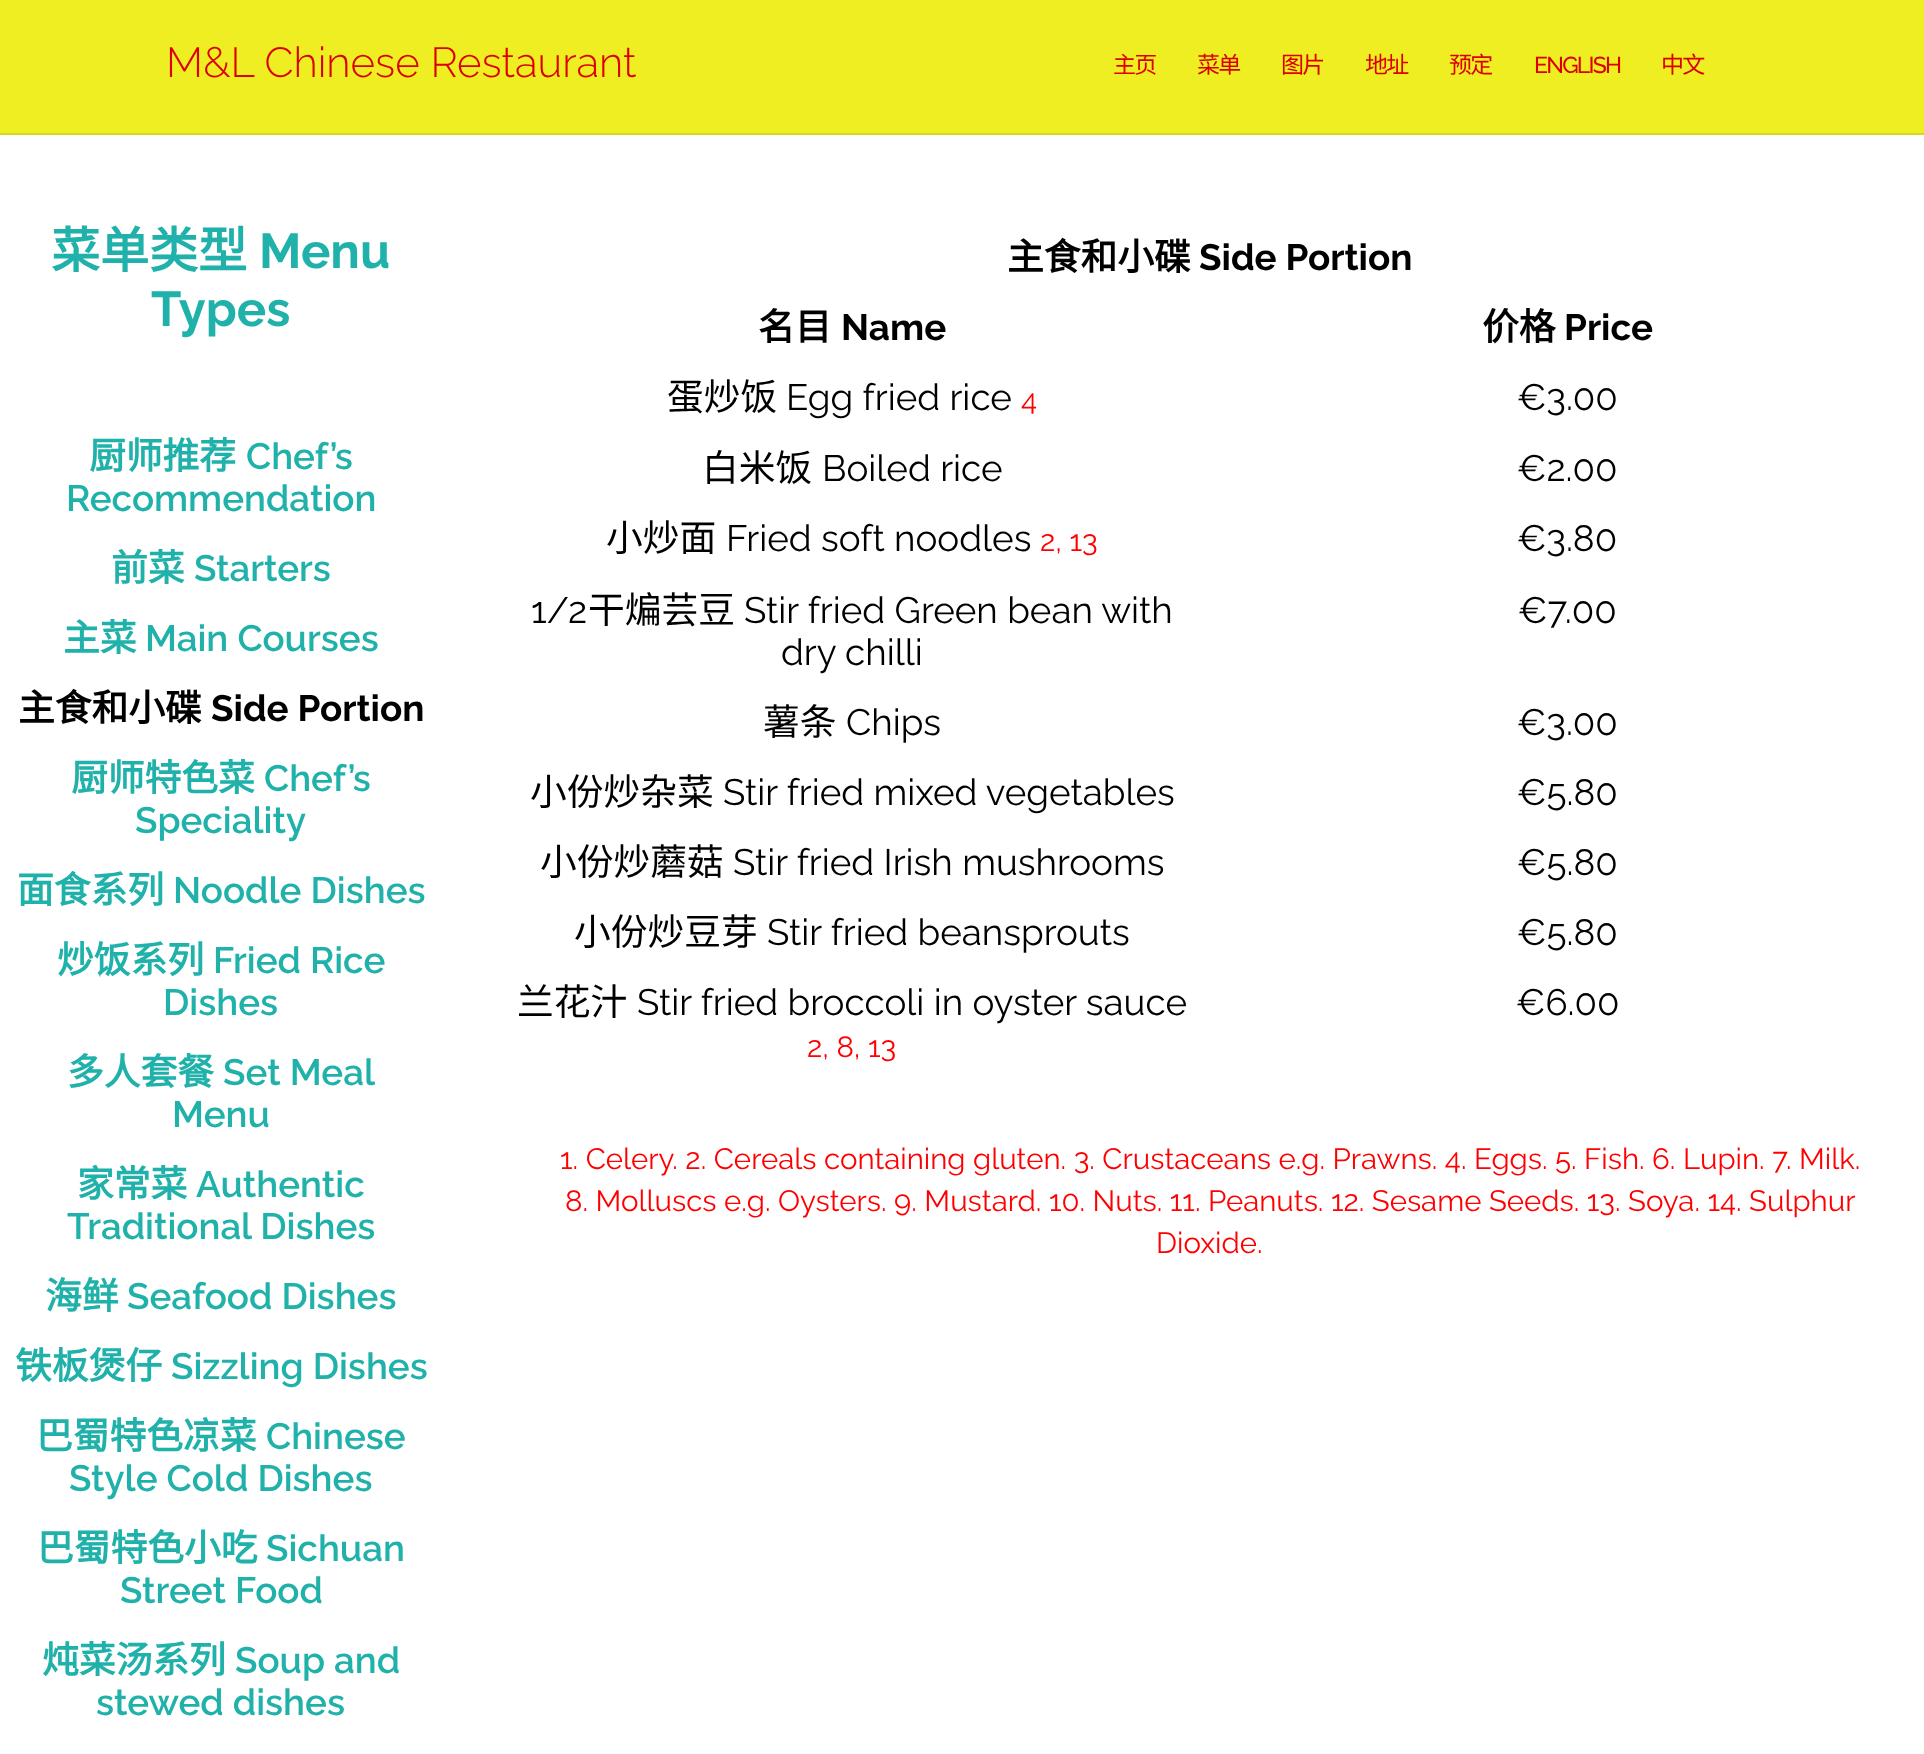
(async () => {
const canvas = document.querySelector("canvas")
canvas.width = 1924
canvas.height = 1754
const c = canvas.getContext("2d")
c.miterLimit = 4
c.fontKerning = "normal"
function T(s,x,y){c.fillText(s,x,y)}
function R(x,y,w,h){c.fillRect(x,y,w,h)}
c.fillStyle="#fff"
R(0,0,1924,1754)
c.fillStyle="#ee2"
R(0,0,1924,133)
c.fillStyle="#d6d61f"
R(0,133,1924,2)
c.font="300 42px Raleway"
c.fillStyle="#d00"
T("M&L Chinese Restaurant",166,77)
c.letterSpacing="-1.75px"
c.font="23px Noto Sans CJK SC"
T("主页",1113,73)
T("菜单",1197,73)
T("图片",1281,73)
T("地址",1365,73)
T("预定",1449,73)
c.font="500 23px Raleway"
T("ENGLISH",1534,73)
c.font="23px Noto Sans CJK SC"
T("中文",1661,73)
c.letterSpacing="0px"
c.font="bold 49px Noto Sans CJK SC"
c.fillStyle="#20b2aa"
T("菜单类型",51,268)
c.font="bold 49px Raleway"
T("Menu",259,268)
T("Types",151,326)
c.font="bold 36.75px Noto Sans CJK SC"
T("厨师推荐",89,469)
c.font="600 36.75px Raleway"
T("Chef’s",246,469)
T("Recommendation",66,511)
c.font="bold 36.75px Noto Sans CJK SC"
T("前菜",111,581)
c.font="600 36.75px Raleway"
T("Starters",194,581)
c.font="bold 36.75px Noto Sans CJK SC"
T("主菜",63,651)
c.font="600 36.75px Raleway"
T("Main Courses",145,651)
c.font="bold 36.75px Noto Sans CJK SC"
c.fillStyle="#000"
T("主食和小碟",18,721)
c.font="bold 36.75px Raleway"
T("Side Portion",211,721)
c.font="bold 36.75px Noto Sans CJK SC"
c.fillStyle="#20b2aa"
T("厨师特色菜",71,791)
c.font="600 36.75px Raleway"
T("Chef’s",264,791)
T("Speciality",135,833)
c.font="bold 36.75px Noto Sans CJK SC"
T("面食系列",17,903)
c.font="600 36.75px Raleway"
T("Noodle Dishes",173,903)
c.font="bold 36.75px Noto Sans CJK SC"
T("炒饭系列",57,973)
c.font="600 36.75px Raleway"
T("Fried Rice",213,973)
T("Dishes",163,1015)
c.font="bold 36.75px Noto Sans CJK SC"
T("多人套餐",67,1085)
c.font="600 36.75px Raleway"
T("Set Meal",223,1085)
T("Menu",172,1127)
c.font="bold 36.75px Noto Sans CJK SC"
T("家常菜",77,1197)
c.font="600 36.75px Raleway"
T("Authentic",196,1197)
T("Traditional Dishes",67,1239)
c.font="bold 36.75px Noto Sans CJK SC"
T("海鲜",45,1309)
c.font="600 36.75px Raleway"
T("Seafood Dishes",127,1309)
c.font="bold 36.75px Noto Sans CJK SC"
T("铁板煲仔",15,1379)
c.font="600 36.75px Raleway"
T("Sizzling Dishes",171,1379)
c.font="bold 36.75px Noto Sans CJK SC"
T("巴蜀特色凉菜",36,1449)
c.font="600 36.75px Raleway"
T("Chinese",266,1449)
T("Style Cold Dishes",69,1491)
c.font="bold 36.75px Noto Sans CJK SC"
T("巴蜀特色小吃",37,1561)
c.font="600 36.75px Raleway"
T("Sichuan",266,1561)
T("Street Food",120,1603)
c.font="bold 36.75px Noto Sans CJK SC"
T("炖菜汤系列",42,1673)
c.font="600 36.75px Raleway"
T("Soup and",235,1673)
T("stewed dishes",96,1715)
c.font="bold 36.75px Noto Sans CJK SC"
c.fillStyle="#000"
T("主食和小碟",1007,270)
c.font="bold 36.75px Raleway"
T("Side Portion",1199,270)
c.font="bold 36.75px Noto Sans CJK SC"
T("名目",758,340)
c.font="bold 36.75px Raleway"
T("Name",841,340)
c.font="bold 36.75px Noto Sans CJK SC"
T("价格",1482,340)
c.font="bold 36.75px Raleway"
T("Price",1564,340)
c.font="36.75px Noto Sans CJK SC"
T("蛋炒饭",667,410)
c.font="36.75px Raleway"
T("Egg fried rice",786,410)
c.font="29.4px Raleway"
c.fillStyle="#f00"
T("4",1021,410)
c.font="36.75px Raleway"
c.fillStyle="#000"
T("€3.00",1517,410)
c.font="36.75px Noto Sans CJK SC"
T("白米饭",702,481)
c.font="36.75px Raleway"
T("Boiled rice",822,481)
T("€2.00",1517,481)
c.font="36.75px Noto Sans CJK SC"
T("小炒面",606,551)
c.font="36.75px Raleway"
T("Fried soft noodles",726,551)
c.font="29.4px Raleway"
c.fillStyle="#f00"
T("2, 13",1040,551)
c.font="36.75px Raleway"
c.fillStyle="#000"
T("€3.80",1517,551)
T("1/2",531,623)
c.font="36.75px Noto Sans CJK SC"
T("干煸芸豆",588,623)
c.font="36.75px Raleway"
T("Stir fried Green bean with",744,623)
T("dry chilli",781,665)
T("€7.00",1518,623)
c.font="36.75px Noto Sans CJK SC"
T("薯条",763,735)
c.font="36.75px Raleway"
T("Chips",846,735)
T("€3.00",1517,735)
c.font="36.75px Noto Sans CJK SC"
T("小份炒杂菜",530,805)
c.font="36.75px Raleway"
T("Stir fried mixed vegetables",723,805)
T("€5.80",1517,805)
c.font="36.75px Noto Sans CJK SC"
T("小份炒蘑菇",540,875)
c.font="36.75px Raleway"
T("Stir fried Irish mushrooms",733,875)
T("€5.80",1517,875)
c.font="36.75px Noto Sans CJK SC"
T("小份炒豆芽",574,945)
c.font="36.75px Raleway"
T("Stir fried beansprouts",767,945)
T("€5.80",1517,945)
c.font="36.75px Noto Sans CJK SC"
T("兰花汁",517,1015)
c.font="36.75px Raleway"
T("Stir fried broccoli in oyster sauce",637,1015)
c.font="29.4px Raleway"
c.fillStyle="#f00"
T("2, 8, 13",807,1057)
c.font="36.75px Raleway"
c.fillStyle="#000"
T("€6.00",1516,1015)
c.font="29.4px Raleway"
c.fillStyle="#f00"
T("1. Celery. 2. Cereals containing gluten. 3. Crustaceans e.g. Prawns. 4. Eggs. 5. Fish. 6. Lupin. 7. Milk.",560,1169)
T("8. Molluscs e.g. Oysters. 9. Mustard. 10. Nuts. 11. Peanuts. 12. Sesame Seeds. 13. Soya. 14. Sulphur",565,1211)
T("Dioxide.",1156,1253)
})()
